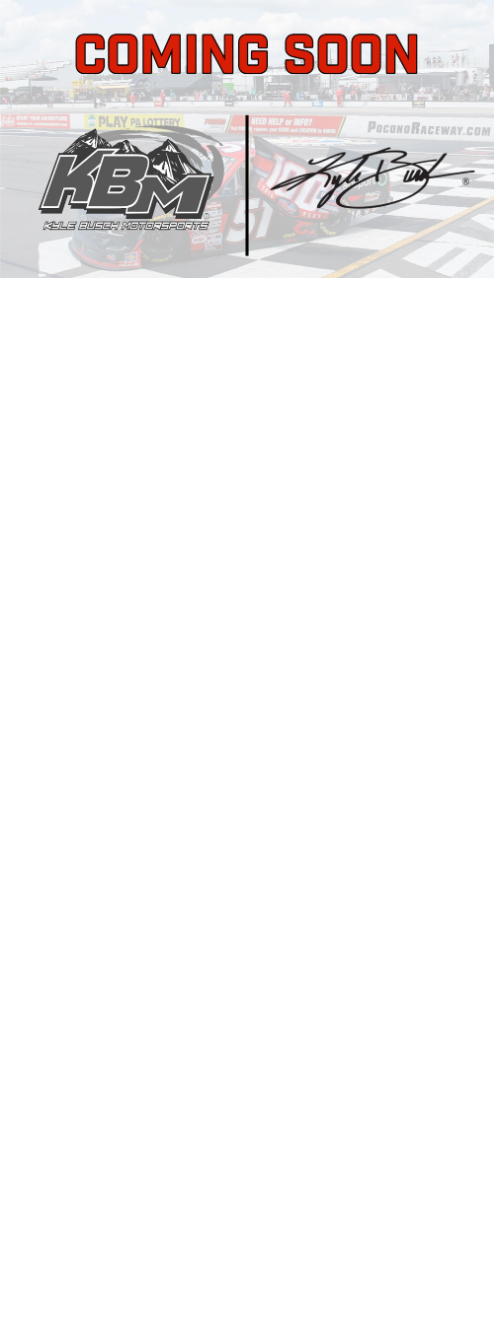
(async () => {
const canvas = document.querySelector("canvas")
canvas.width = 494
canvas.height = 1337
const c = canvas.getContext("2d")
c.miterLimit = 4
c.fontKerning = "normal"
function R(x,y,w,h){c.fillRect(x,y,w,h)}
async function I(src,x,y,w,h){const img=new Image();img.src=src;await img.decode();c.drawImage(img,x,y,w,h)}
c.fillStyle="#fff"
R(0,0,494,1337)
await I("1.png",0,0,494,278)
})()
